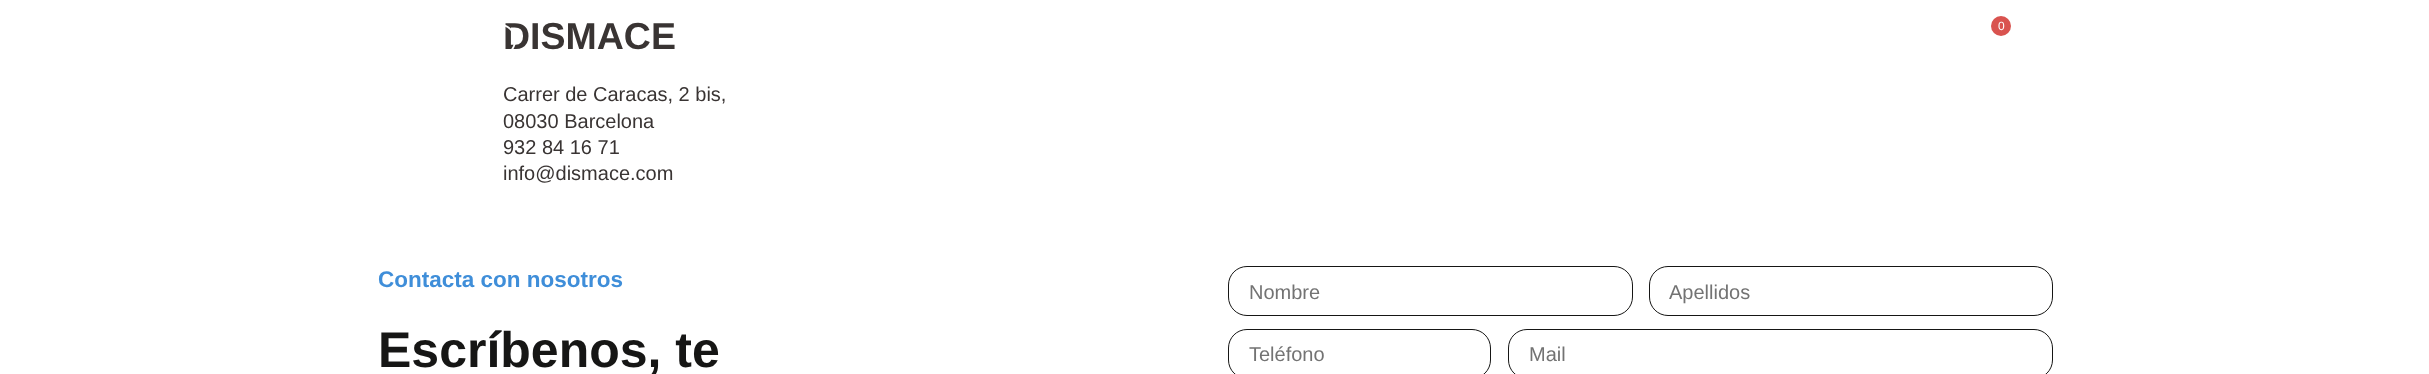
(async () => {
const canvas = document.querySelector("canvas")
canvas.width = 2429
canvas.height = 374
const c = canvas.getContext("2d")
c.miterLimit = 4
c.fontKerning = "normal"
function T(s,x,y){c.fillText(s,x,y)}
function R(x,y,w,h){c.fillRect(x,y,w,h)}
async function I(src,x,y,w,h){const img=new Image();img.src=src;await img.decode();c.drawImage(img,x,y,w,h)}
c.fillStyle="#fff"
R(0,0,2429,374)
c.font="bold 37.5px Liberation Sans"
c.fillStyle="#393433"
T("DISMACE",503,49)
c.font="20px Liberation Sans"
T("Carrer de Caracas, 2 bis,",503,101)
T("08030 Barcelona",503,128)
T("932 84 16 71",503,154)
T("info@dismace.com",503,180)
await I("1.png",505,24,11,25)
c.fillStyle="#d9534f"
c.beginPath()
c.arc(2001,26,10,0,7)
c.fill()
c.font="12px Liberation Sans"
c.fillStyle="#fff"
T("0",1998,30)
c.font="bold 22.5px Liberation Sans"
c.fillStyle="#3f8ed9"
T("Contacta con nosotros",378,287)
c.font="bold 50px Liberation Sans"
c.fillStyle="#161615"
T("Escríbenos, te",378,367)
c.beginPath()
c.roundRect(1228.5,266.5,404,49,18.5)
c.strokeStyle="#161615"
c.stroke()
c.font="20px Liberation Sans"
c.fillStyle="#737373"
T("Nombre",1249,299)
c.beginPath()
c.roundRect(1649.5,266.5,403,49,18.5)
c.stroke()
T("Apellidos",1669,299)
c.beginPath()
c.roundRect(1228.5,329.5,262,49,18.5)
c.stroke()
T("Teléfono",1249,361)
c.beginPath()
c.roundRect(1508.5,329.5,544,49,18.5)
c.stroke()
T("Mail",1529,361)
})()
